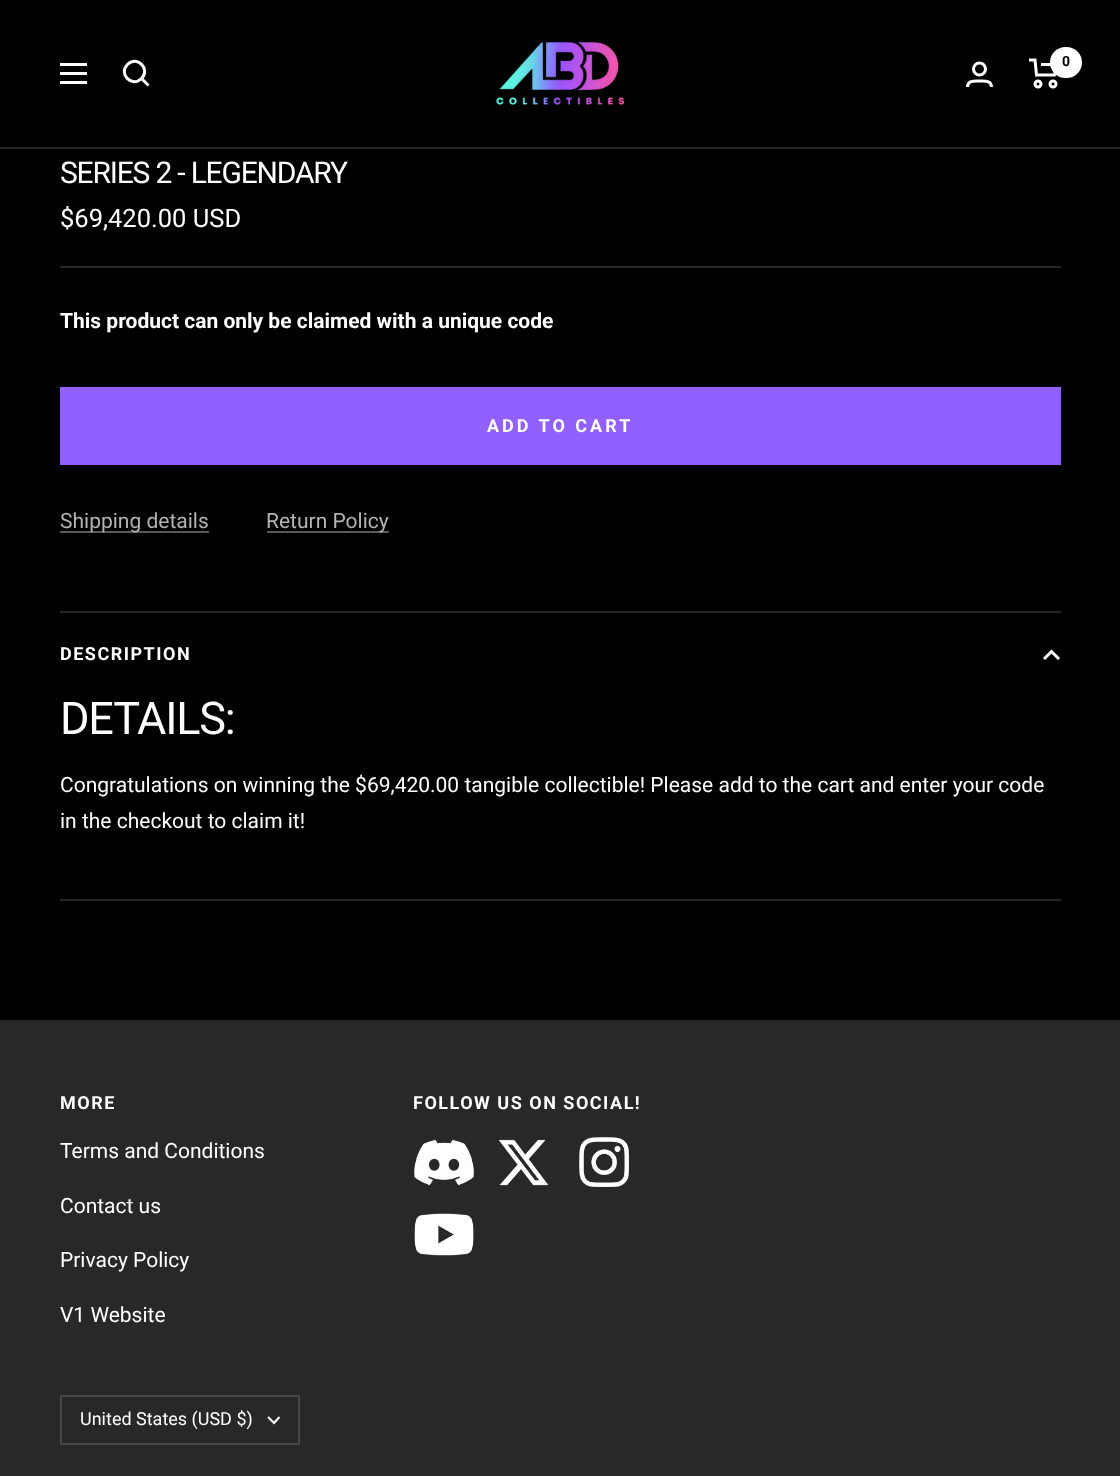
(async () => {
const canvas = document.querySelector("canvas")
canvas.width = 1120
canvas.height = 1476
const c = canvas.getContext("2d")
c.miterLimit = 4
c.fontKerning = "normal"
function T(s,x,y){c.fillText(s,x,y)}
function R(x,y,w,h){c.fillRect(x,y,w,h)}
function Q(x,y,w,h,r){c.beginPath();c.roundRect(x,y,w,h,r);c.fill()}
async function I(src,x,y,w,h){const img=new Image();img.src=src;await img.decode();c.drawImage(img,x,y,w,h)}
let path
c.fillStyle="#000"
R(0,0,1120,1476)
c.fillStyle="#262626"
path = new Path2D("M0 147v2h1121v-147h-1v145z")
c.fill(path)
path = new Path2D("M60 64.5h27m-27 18h27zm0-9h27z")
c.strokeStyle="#fff"
c.lineWidth=3
c.stroke(path)
path = new Path2D("M141.5 78.5c9.5-9.5-4.5-23.5-14-14c-9.5 9.5 4.5 23.5 14 14zm0 0l7 7")
c.stroke(path)
await I("1.png",496,42,128,63)
c.beginPath()
c.arc(979.5,69,6,0,7)
c.stroke()
path = new Path2D("M967.5 87c0-7 7.5-6 12-6c4.5 0 12-1 12 6")
c.stroke(path)
path = new Path2D("M1029 60h6l1.5 15h18l3-10.5h-16.5")
c.stroke(path)
c.beginPath()
c.arc(1038,84,3,0,7)
c.stroke()
c.beginPath()
c.arc(1053,84,3,0,7)
c.stroke()
c.fillStyle="#fff"
Q(1050,47,32,31,15.5)
c.font="bold 14px Roboto"
c.fillStyle="#000"
T("0",1062,66)
c.fillStyle="#262626"
R(60,266,1001,2)
c.letterSpacing="-1.2px"
c.font="30px Roboto"
c.fillStyle="#fff"
T("SERIES 2 - LEGENDARY",60,183)
c.letterSpacing="0px"
c.font="25.5px Roboto"
T("$69,420.00 USD",60,227)
c.font="bold 21px Roboto"
T("This product can only be claimed with a unique code",60,328)
c.fillStyle="#9260ff"
R(60,387,1001,78)
c.letterSpacing="3px"
c.font="bold 18px Roboto"
c.fillStyle="#fff"
T("ADD TO CART",487,432)
c.fillStyle="#595959"
R(60,531,149,2)
c.letterSpacing="0px"
c.font="21px Roboto"
c.fillStyle="#b3b3b3"
T("Shipping details",60,528)
c.fillStyle="#595959"
R(267,531,122,2)
c.fillStyle="#b3b3b3"
T("Return Policy",266,528)
c.fillStyle="#262626"
R(60,611,1001,2)
R(60,899,1001,2)
c.letterSpacing="1.5px"
c.font="bold 18px Roboto"
c.fillStyle="#fff"
T("DESCRIPTION",60,660)
path = new Path2D("M1059 659l-7.5-7.5l-7.5 7.5")
c.stroke(path)
c.letterSpacing="-1.2px"
c.font="45px Roboto"
T("DETAILS:",60,734)
c.letterSpacing="0px"
c.font="21px Roboto"
T("Congratulations on winning the $69,420.00 tangible collectible! Please add to the cart and enter your code",60,792)
T("in the checkout to claim it!",60,828)
c.fillStyle="#282828"
R(0,1020,1120,456)
c.letterSpacing="1.5px"
c.font="bold 18px Roboto"
c.fillStyle="#fff"
T("MORE",60,1109)
c.letterSpacing="0px"
c.font="21px Roboto"
T("Terms and Conditions",60,1158)
T("Contact us",60,1213)
T("Privacy Policy",60,1267)
T("V1 Website",60,1322)
c.letterSpacing="1.5px"
c.font="bold 18px Roboto"
T("FOLLOW US ON SOCIAL!",413,1109)
await I("2.png",414,1139,60,47)
await I("3.png",499,1139,49,47)
await I("4.png",579,1137,50,50)
await I("5.png",414,1213,60,43)
c.strokeStyle="#484848"
c.lineWidth=2
c.strokeRect(61,1396,238,48)
c.letterSpacing="0px"
c.font="18px Roboto"
T("United States (USD $)",80,1425)
path = new Path2D("M268 1417l6 6l5.5-6")
c.strokeStyle="#fff"
c.lineWidth=2.2
c.stroke(path)
})()
